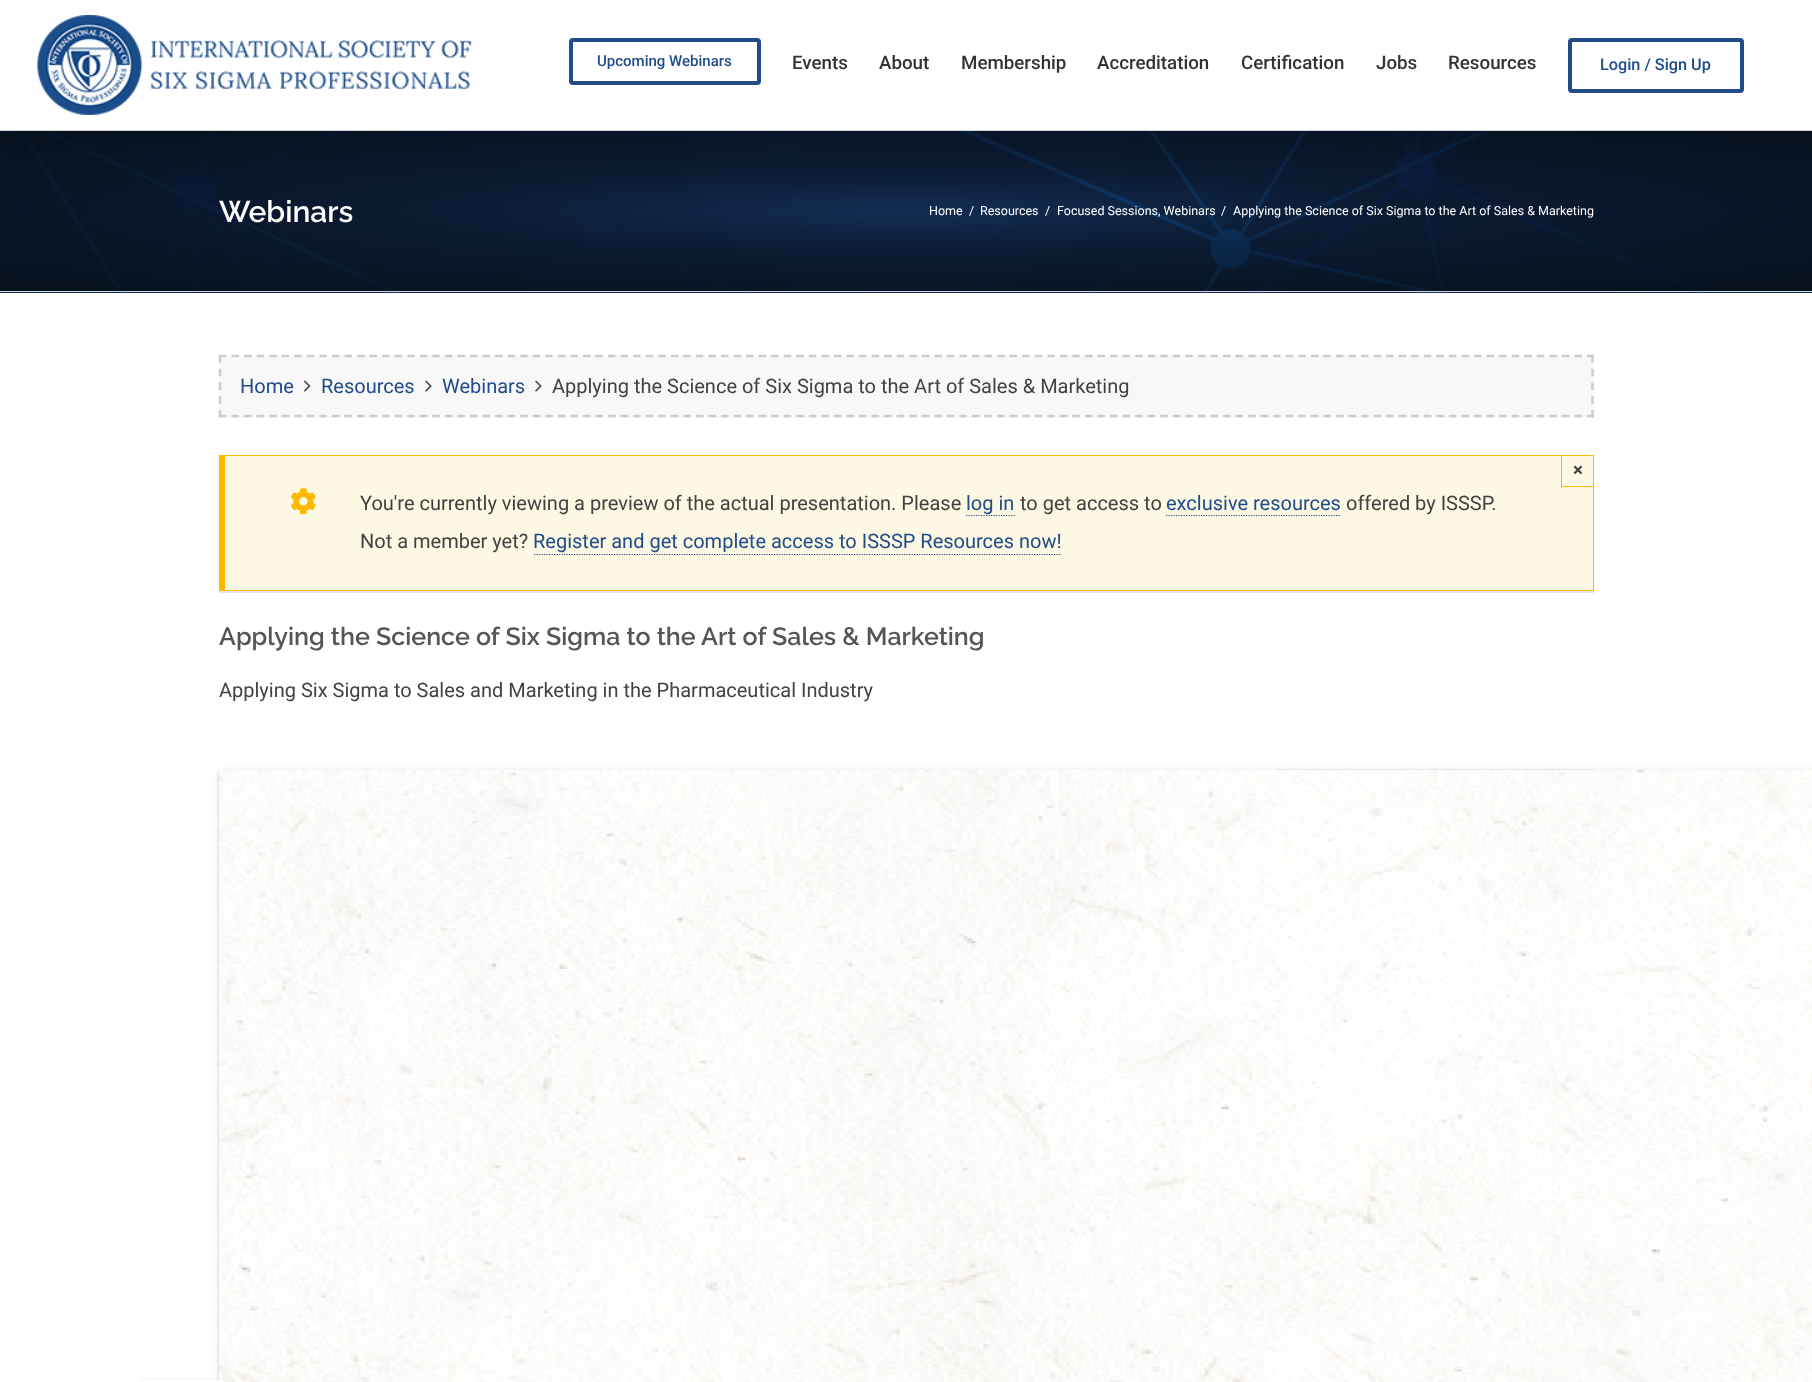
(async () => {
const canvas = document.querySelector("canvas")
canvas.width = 1812
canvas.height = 1382
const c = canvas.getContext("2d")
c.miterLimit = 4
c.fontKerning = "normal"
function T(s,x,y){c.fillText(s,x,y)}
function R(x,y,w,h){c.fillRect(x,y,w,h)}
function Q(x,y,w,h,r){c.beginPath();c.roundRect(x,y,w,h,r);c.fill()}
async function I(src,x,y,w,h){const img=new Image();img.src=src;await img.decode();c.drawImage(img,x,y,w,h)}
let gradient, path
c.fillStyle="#fff"
R(0,0,1812,1382)
await I("1.png",37,15,435,100)
c.beginPath()
c.roundRect(571,40,188,43,2)
c.strokeStyle="#214c8a"
c.lineWidth=4
c.stroke()
c.font="500 15px Roboto"
c.fillStyle="#214c8a"
T("Upcoming Webinars",597,66)
c.font="500 18.75px Roboto"
c.fillStyle="#333"
T("Events",792,69)
T("About",879,69)
T("Membership",961,69)
T("Accreditation",1097,69)
T("Certification",1241,69)
T("Jobs",1376,69)
T("Resources",1448,69)
c.beginPath()
c.roundRect(1570,40,172,51,2)
c.stroke()
c.font="500 16.25px Roboto"
c.fillStyle="#214c8a"
T("Login / Sign Up",1600,70)
c.fillStyle="#122d54"
R(0,131,1812,162)
await I("2.png",0,131,1709,162)
c.fillStyle="#d2d3d4"
R(0,130,1812,1)
R(0,291,1812,1)
gradient = c.createRadialGradient(906,2393.82,0,906,2393.82,1282)
gradient.addColorStop(0,"#00000000")
gradient.addColorStop(.37,"#00000066")
gradient.addColorStop(1,"#000000a6")
c.fillStyle = gradient
c.beginPath()
c.rect(0,131,1812,160)
c.save()
c.clip()
c.scale(1,113 / 1282)
c.fillRect(0,0,1812,15679)
c.restore()
c.font="100 30px Raleway"
c.fillStyle="#fff"
T("Webinars",219,222)
c.font="12.5px Roboto"
T("Home",929,215)
T("/",969,215)
T("Resources",980,215)
T("/",1045,215)
T("Focused Sessions, Webinars",1057,215)
T("/",1221,215)
T("Applying the Science of Six Sigma to the Art of Sales & Marketing",1233,215)
c.fillStyle="#f8f8f8"
R(219,355,1375,63)
path = new Path2D("M219 356h1375")
c.strokeStyle="#ccc"
c.lineWidth=2.5
c.setLineDash([7.5,5.05])
c.stroke(path)
path = new Path2D("M1592.5 355v62.5")
c.setLineDash([7.5,6.25])
c.stroke(path)
path = new Path2D("M219 416h1375")
c.setLineDash([7.5,5.05])
c.stroke(path)
path = new Path2D("M220 355v62.5")
c.setLineDash([7.5,6.25])
c.stroke(path)
c.font="20px Roboto"
c.fillStyle="#214c8a"
T("Home",240,393)
await I("3.png",303,380,8,12)
T("Resources",321,393)
await I("4.png",425,380,7,12)
T("Webinars",442,393)
await I("4.png",535,380,7,12)
c.fillStyle="#424242"
T("Applying the Science of Six Sigma to the Art of Sales & Marketing",552,393)
c.fillStyle="#0000001a"
c.filter="blur(0.5px)"
c.beginPath()
c.rect(219,456,1375,137)
c.fill()
c.filter="none"
c.fillStyle="#fcf8e3"
R(225,456,1368,134)
c.fillStyle="#ffb900"
R(219,455,1375,1)
R(1593,455,1,136)
R(219,590,1375,1)
R(219,455,6,136)
R(1561,486,33,1)
R(1561,455,1,33)
c.font="bold 18.75px Roboto"
c.fillStyle="#424242"
T("×",1573,476)
await I("5.png",291,488,25,27)
c.font="20px Roboto"
T("You're currently viewing a preview of the actual presentation. Please",360,510)
path = new Path2D("M966 515.5h49")
c.strokeStyle="#214c8a"
c.lineWidth=1.2
c.setLineDash([1.25,1.25])
c.stroke(path)
c.fillStyle="#214c8a"
T("log in",966,510)
c.fillStyle="#424242"
T("to get access to",1020,510)
c.fillStyle="#214c8a"
T("exclusive resources",1166,510)
path = new Path2D("M1166 515.5h175")
c.stroke(path)
c.fillStyle="#424242"
T("offered by ISSSP.",1346,510)
T("Not a member yet?",360,548)
c.fillStyle="#214c8a"
T("Register and get complete access to ISSSP Resources now!",533,548)
path = new Path2D("M534 554.5h527")
c.stroke(path)
c.font="100 25px Raleway"
c.fillStyle="#555"
T("Applying the Science of Six Sigma to the Art of Sales & Marketing",219,645)
c.font="20px Roboto"
c.fillStyle="#424242"
T("Applying Six Sigma to Sales and Marketing in the Pharmaceutical Industry",219,697)
c.fillStyle="#0000001f"
c.filter="blur(3px)"
c.beginPath()
c.rect(219,771,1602,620)
c.fill()
c.filter="none"
c.fillStyle="#00000024"
c.filter="blur(1px)"
c.beginPath()
c.rect(219,773,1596,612)
c.fill()
c.filter="none"
c.fillStyle="#00000026"
c.filter="blur(1px)"
c.beginPath()
c.rect(1276,770,318,245)
c.fill()
c.filter="none"
await I("6.png",219,770,1593,612)
c.fillStyle="#00000024"
c.filter="blur(2px)"
c.beginPath()
c.roundRect(144,1381,80,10,2.5)
c.fill()
c.filter="none"
gradient = c.createLinearGradient(184,1380,184,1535)
gradient.addColorStop(0,"#fff")
gradient.addColorStop(.57,"#fefefe")
gradient.addColorStop(1,"#f6f6f6")
c.fillStyle = gradient
Q(144,1380,80,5,2.5)
})()
